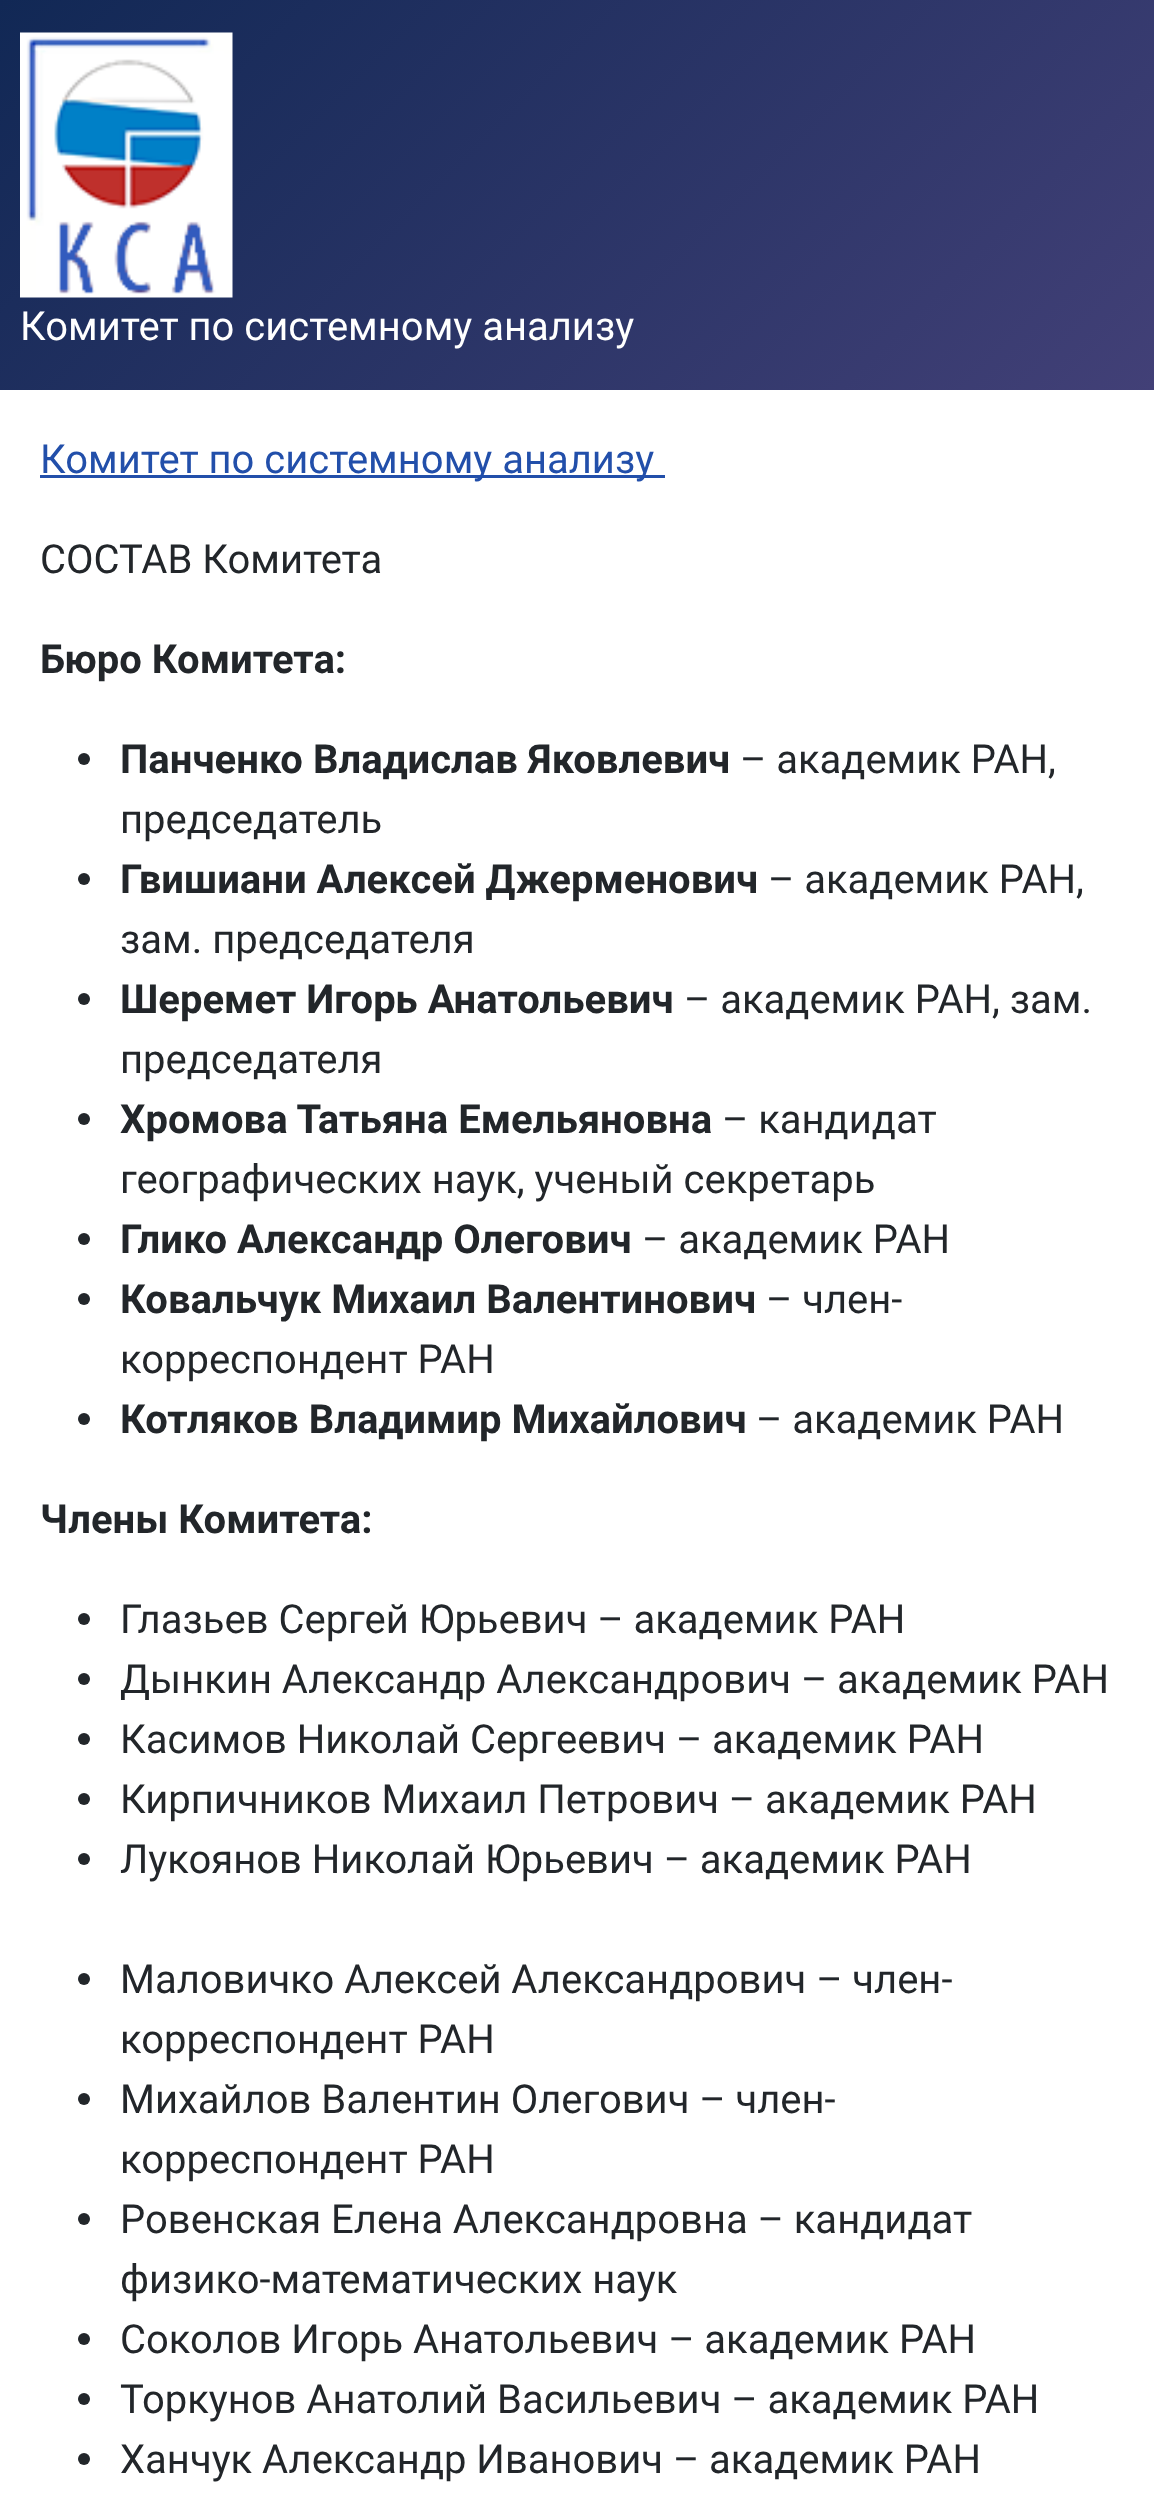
(async () => {
const canvas = document.querySelector("canvas")
canvas.width = 1154
canvas.height = 2510
const c = canvas.getContext("2d")
c.miterLimit = 4
c.fontKerning = "normal"
function T(s,x,y){c.fillText(s,x,y)}
function R(x,y,w,h){c.fillRect(x,y,w,h)}
async function I(src,x,y,w,h){const img=new Image();img.src=src;await img.decode();c.drawImage(img,x,y,w,h)}
let gradient
c.fillStyle="#fff"
R(0,0,1154,2510)
gradient = c.createLinearGradient(191,-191,964,581)
gradient.addColorStop(0,"#112855")
gradient.addColorStop(1,"#424077")
c.fillStyle = gradient
R(0,0,1154,390)
await I("1.png",20,32,213,266)
c.font="40px Roboto"
c.fillStyle="#fff"
T("Комитет по системному анализу",20,340)
c.fillStyle="#224faa"
R(40,475,625,3)
T("Комитет по системному анализу",40,473)
c.fillStyle="#22262a"
T("СОСТАВ Комитета",40,573)
c.font="bold 40px Roboto"
T("Бюро Комитета:",40,673)
c.beginPath()
c.arc(84,759,6,0,7)
c.fill()
T("Панченко Владислав Яковлевич",120,773)
c.font="40px Roboto"
T("– академик РАН,",740,773)
T("председатель",120,833)
c.beginPath()
c.arc(84,879,6,0,7)
c.fill()
c.font="bold 40px Roboto"
T("Гвишиани Алексей Джерменович",120,893)
c.font="40px Roboto"
T("– академик РАН,",768,893)
T("зам. председателя",120,953)
c.beginPath()
c.arc(84,999,6,0,7)
c.fill()
c.font="bold 40px Roboto"
T("Шеремет Игорь Анатольевич",120,1013)
c.font="40px Roboto"
T("– академик РАН, зам.",684,1013)
T("председателя",120,1073)
c.beginPath()
c.arc(84,1119,6,0,7)
c.fill()
c.font="bold 40px Roboto"
T("Хромова Татьяна Емельяновна",120,1133)
c.font="40px Roboto"
T("– кандидат",722,1133)
T("географических наук, ученый секретарь",120,1193)
c.beginPath()
c.arc(84,1239,6,0,7)
c.fill()
c.font="bold 40px Roboto"
T("Глико Александр Олегович",120,1253)
c.font="40px Roboto"
T("– академик РАН",642,1253)
c.beginPath()
c.arc(84,1299,6,0,7)
c.fill()
c.font="bold 40px Roboto"
T("Ковальчук Михаил Валентинович",120,1313)
c.font="40px Roboto"
T("– член-",766,1313)
T("корреспондент РАН",120,1373)
c.beginPath()
c.arc(84,1419,6,0,7)
c.fill()
c.font="bold 40px Roboto"
T("Котляков Владимир Михайлович",120,1433)
c.font="40px Roboto"
T("– академик РАН",756,1433)
c.font="bold 40px Roboto"
T("Члены Комитета:",40,1533)
c.beginPath()
c.arc(84,1619,6,0,7)
c.fill()
c.font="40px Roboto"
T("Глазьев Сергей Юрьевич – академик РАН",120,1633)
c.beginPath()
c.arc(84,1679,6,0,7)
c.fill()
T("Дынкин Александр Александрович – академик РАН",120,1693)
c.beginPath()
c.arc(84,1739,6,0,7)
c.fill()
T("Касимов Николай Сергеевич – академик РАН",120,1753)
c.beginPath()
c.arc(84,1799,6,0,7)
c.fill()
T("Кирпичников Михаил Петрович – академик РАН",120,1813)
c.beginPath()
c.arc(84,1859,6,0,7)
c.fill()
T("Лукоянов Николай Юрьевич – академик РАН",120,1873)
c.beginPath()
c.arc(84,1979,6,0,7)
c.fill()
T("Маловичко Алексей Александрович – член-",120,1993)
T("корреспондент РАН",120,2053)
c.beginPath()
c.arc(84,2099,6,0,7)
c.fill()
T("Михайлов Валентин Олегович – член-",120,2113)
T("корреспондент РАН",120,2173)
c.beginPath()
c.arc(84,2219,6,0,7)
c.fill()
T("Ровенская Елена Александровна – кандидат",120,2233)
T("физико-математических наук",120,2293)
c.beginPath()
c.arc(84,2339,6,0,7)
c.fill()
T("Соколов Игорь Анатольевич – академик РАН",120,2353)
c.beginPath()
c.arc(84,2399,6,0,7)
c.fill()
T("Торкунов Анатолий Васильевич – академик РАН",120,2413)
c.beginPath()
c.arc(84,2459,6,0,7)
c.fill()
T("Ханчук Александр Иванович – академик РАН",120,2473)
})()
